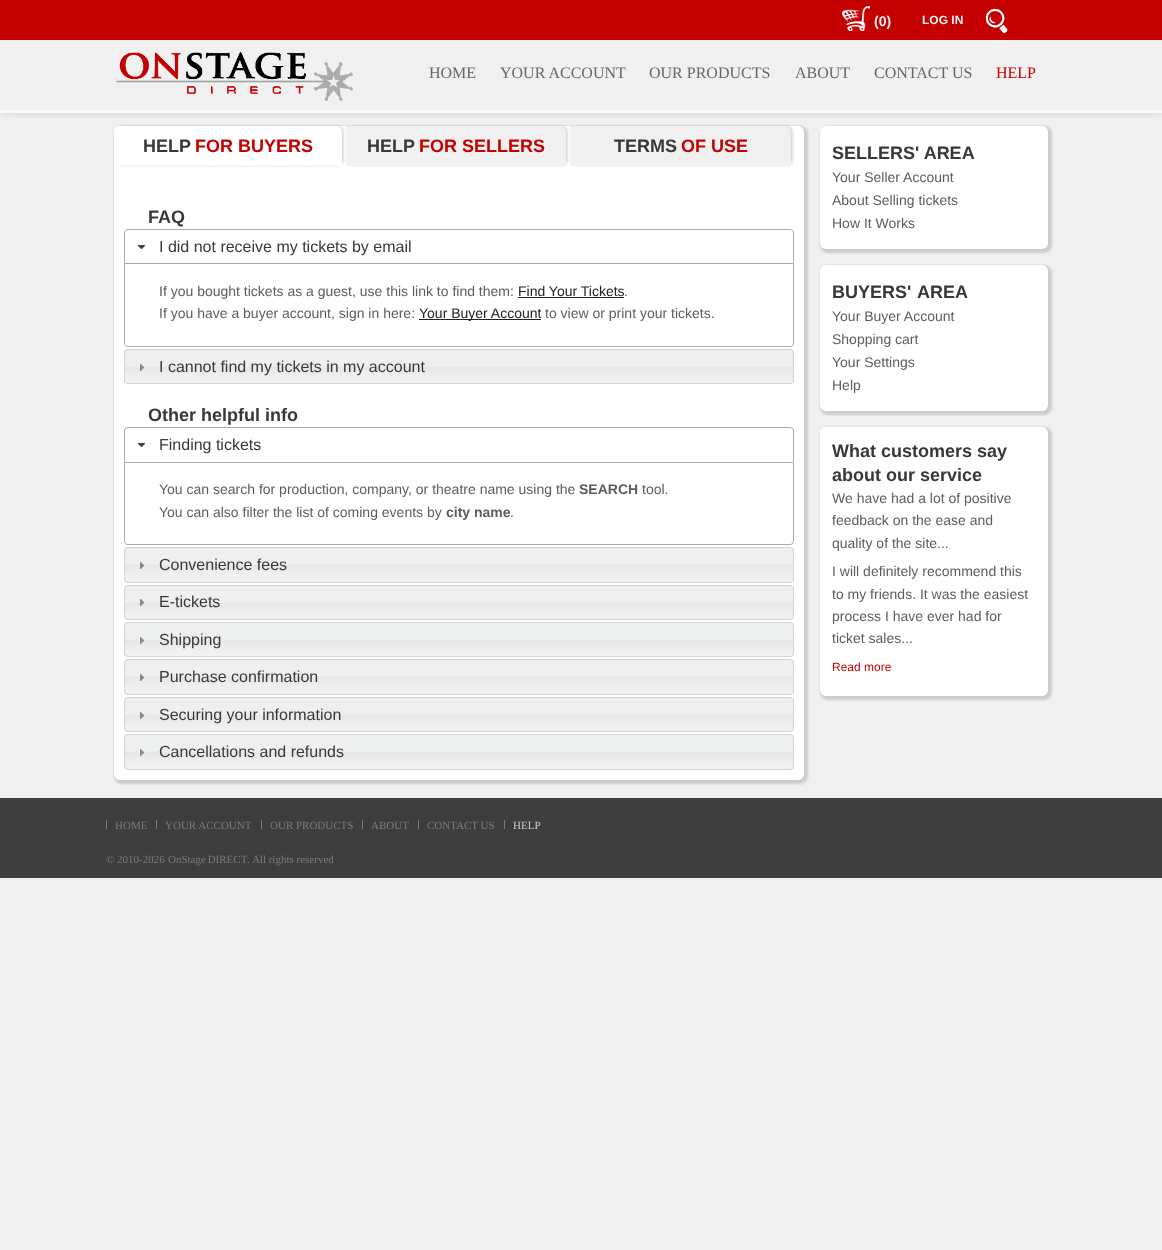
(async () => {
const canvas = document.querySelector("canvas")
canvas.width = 1162
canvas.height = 1250
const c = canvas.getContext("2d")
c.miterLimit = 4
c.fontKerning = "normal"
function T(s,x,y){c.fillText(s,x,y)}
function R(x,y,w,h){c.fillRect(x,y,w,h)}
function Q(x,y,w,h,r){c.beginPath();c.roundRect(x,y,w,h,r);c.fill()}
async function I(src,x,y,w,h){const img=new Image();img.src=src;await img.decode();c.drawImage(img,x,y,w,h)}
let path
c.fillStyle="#f0f0f0"
R(0,0,1162,1250)
c.save()
c.beginPath()
c.rect(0,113,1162,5)
c.clip()
c.fillStyle="#00000033"
c.filter="blur(6px)"
c.beginPath()
c.rect(0,0,1162,110)
c.fill()
c.filter="none"
c.restore()
c.fillStyle="#c40000"
R(0,0,1162,40)
await I("1.png",842,6,28,25)
c.font="bold 14px Liberation Sans"
c.fillStyle="#f0f0f0"
T("(0)",874,26)
c.font="bold 12px Liberation Sans"
T("LOG IN",922,24)
await I("2.png",985,8,23,26)
c.fillStyle="#fafafa"
R(0,110,1162,3)
await I("3.png",116,52,237,49)
c.font="16px Liberation Serif"
c.fillStyle="#666"
T("HOME",429,78)
T("YOUR ACCOUNT",500,78)
T("OUR PRODUCTS",649,78)
T("ABOUT",795,78)
T("CONTACT US",874,78)
c.fillStyle="#c40000"
T("HELP",996,78)
c.fillStyle="#00000026"
c.filter="blur(1px)"
c.beginPath()
c.roundRect(114,126,694,658,8)
c.fill()
c.filter="none"
c.fillStyle="#fff"
Q(114,126,690,654,6)
c.fillStyle="#00000026"
c.filter="blur(1px)"
c.beginPath()
c.roundRect(116,126,228,40,6)
c.fill()
c.filter="none"
c.fillStyle="#fff"
c.beginPath()
c.roundRect(114,126,228,40,[6,6,0,0])
c.fill()
c.font="bold 18px Liberation Sans"
c.fillStyle="#383838"
T("HELP",143,152)
c.fillStyle="#c40000"
T("FOR BUYERS",195,152)
c.fillStyle="#00000026"
c.filter="blur(1px)"
c.beginPath()
c.roundRect(348,126,220,40,6)
c.fill()
c.filter="none"
c.fillStyle="#f0f0f0"
c.beginPath()
c.roundRect(346,126,220,40,[0,6,0,0])
c.fill()
c.fillStyle="#383838"
T("HELP",367,152)
c.fillStyle="#c40000"
T("FOR SELLERS",419,152)
c.fillStyle="#00000026"
c.filter="blur(1px)"
c.beginPath()
c.roundRect(572,126,221,40,6)
c.fill()
c.filter="none"
c.fillStyle="#f0f0f0"
c.beginPath()
c.roundRect(570,126,221,40,[0,6,0,0])
c.fill()
c.fillStyle="#383838"
T("TERMS",614,152)
c.fillStyle="#c40000"
T("OF USE",681,152)
c.fillStyle="#383838"
T("FAQ",148,223)
c.beginPath()
c.roundRect(124.5,229.5,669,34,[3.5,3.5,0,0])
c.strokeStyle="#aaa"
c.stroke()
await I("4.png",138,245,7,4)
c.font="16px Liberation Sans"
T("I did not receive my tickets by email",159,252)
c.fillStyle="#aaa"
path = new Path2D("M124 264h670v79c0 2-2 4-4 4h-662c-2 0-4-2-4-4zm1 0h668v79c0 2-1 3-3 3h-662c-2 0-3-1-3-3z")
c.fill(path,"evenodd")
c.font="14px Liberation Sans"
c.fillStyle="#5d5d5d"
T("If you bought tickets as a guest, use this link to find them:",159,296)
c.fillStyle="#222"
T("Find Your Tickets",518,296)
R(518,297,106,1)
c.fillStyle="#5d5d5d"
T(".",624,296)
T("If you have a buyer account, sign in here:",159,318)
c.fillStyle="#222"
R(419,319,122,1)
T("Your Buyer Account",419,318)
c.fillStyle="#5d5d5d"
T("to view or print your tickets.",545,318)
await I("5.png",124,349,670,35)
c.beginPath()
c.roundRect(124.5,349.5,669,34,3.5)
c.strokeStyle="#d3d3d3"
c.stroke()
await I("6.png",140,364,4,7)
c.font="16px Liberation Sans"
c.fillStyle="#383838"
T("I cannot find my tickets in my account",159,372)
c.font="bold 18px Liberation Sans"
T("Other helpful info",148,421)
c.beginPath()
c.roundRect(124.5,427.5,669,35,[3.5,3.5,0,0])
c.strokeStyle="#aaa"
c.stroke()
await I("4.png",138,443,7,4)
c.font="16px Liberation Sans"
T("Finding tickets",159,450)
c.fillStyle="#aaa"
path = new Path2D("M124 463h670v78c0 2-2 4-4 4h-662c-2 0-4-2-4-4zm1 0h668v78c0 2-1 3-3 3h-662c-2 0-3-1-3-3z")
c.fill(path,"evenodd")
c.font="14px Liberation Sans"
c.fillStyle="#5d5d5d"
T("You can search for production, company, or theatre name using the",159,494)
c.font="bold 14px Liberation Sans"
T("SEARCH",579,494)
c.font="14px Liberation Sans"
T("tool.",642,494)
T("You can also filter the list of coming events by",159,517)
c.font="bold 14px Liberation Sans"
T("city name",446,517)
c.font="14px Liberation Sans"
T(".",510,517)
await I("7.png",124,547,670,36)
c.beginPath()
c.roundRect(124.5,547.5,669,35,3.5)
c.strokeStyle="#d3d3d3"
c.stroke()
await I("6.png",140,562,4,7)
c.font="16px Liberation Sans"
c.fillStyle="#383838"
T("Convenience fees",159,570)
await I("5.png",124,585,670,35)
c.beginPath()
c.roundRect(124.5,585.5,669,34,3.5)
c.stroke()
await I("8.png",140,599,4,7)
T("E-tickets",159,607)
await I("5.png",124,622,670,35)
c.beginPath()
c.roundRect(124.5,622.5,669,34,3.5)
c.stroke()
await I("6.png",140,637,4,7)
T("Shipping",159,645)
await I("7.png",124,659,670,36)
c.beginPath()
c.roundRect(124.5,659.5,669,35,3.5)
c.stroke()
await I("6.png",140,674,4,7)
T("Purchase confirmation",159,682)
await I("5.png",124,697,670,35)
c.beginPath()
c.roundRect(124.5,697.5,669,34,3.5)
c.stroke()
await I("6.png",140,712,4,7)
T("Securing your information",159,720)
await I("7.png",124,734,670,36)
c.beginPath()
c.roundRect(124.5,734.5,669,35,3.5)
c.stroke()
await I("6.png",140,749,4,7)
T("Cancellations and refunds",159,757)
c.fillStyle="#00000026"
c.filter="blur(1px)"
c.beginPath()
c.roundRect(820,126,232,127,8)
c.fill()
c.filter="none"
c.fillStyle="#fff"
Q(820,126,228,123,6)
c.font="bold 18px Liberation Sans"
c.fillStyle="#383838"
T("SELLERS' AREA",832,159)
c.font="14px Liberation Sans"
c.fillStyle="#5d5d5d"
T("Your Seller Account",832,182)
T("About Selling tickets",832,205)
T("How It Works",832,228)
c.fillStyle="#00000026"
c.filter="blur(1px)"
c.beginPath()
c.roundRect(820,265,232,150,8)
c.fill()
c.filter="none"
c.fillStyle="#fff"
Q(820,265,228,146,6)
c.font="bold 18px Liberation Sans"
c.fillStyle="#383838"
T("BUYERS'",832,298)
T("AREA",917,298)
c.font="14px Liberation Sans"
c.fillStyle="#5d5d5d"
T("Your Buyer Account",832,321)
T("Shopping cart",832,344)
T("Your Settings",832,367)
T("Help",832,390)
c.fillStyle="#00000026"
c.filter="blur(1px)"
c.beginPath()
c.roundRect(820,427,232,273,8)
c.fill()
c.filter="none"
c.fillStyle="#fff"
Q(820,427,228,269,6)
c.font="bold 18px Liberation Sans"
c.fillStyle="#383838"
T("What customers say",832,457)
T("about our service",832,481)
c.font="14px Liberation Sans"
c.fillStyle="#5d5d5d"
T("We have had a lot of positive",832,503)
T("feedback on the ease and",832,525)
T("quality of the site...",832,548)
T("I will definitely recommend this",832,576)
T("to my friends. It was the easiest",832,599)
T("process I have ever had for",832,621)
T("ticket sales...",832,643)
c.font="12px Liberation Sans"
c.fillStyle="#c40000"
T("Read more",832,671)
c.fillStyle="#3e3e3e"
R(0,798,1162,80)
c.fillStyle="#7b7b7b"
R(106,820,1,9)
c.font="11px Liberation Serif"
T("HOME",115,829)
R(156,820,1,9)
T("YOUR ACCOUNT",165,829)
R(261,820,1,9)
T("OUR PRODUCTS",270,829)
R(362,820,1,9)
T("ABOUT",371,829)
R(418,820,1,9)
T("CONTACT US",427,829)
R(504,820,1,9)
c.fillStyle="#ccc"
T("HELP",513,829)
c.fillStyle="#7b7b7b"
T("© 2010-2026",106,863)
c.wordSpacing="-1px"
T("OnStage DIRECT",168,863)
c.wordSpacing="0px"
T(". All rights reserved",247,863)
})()
